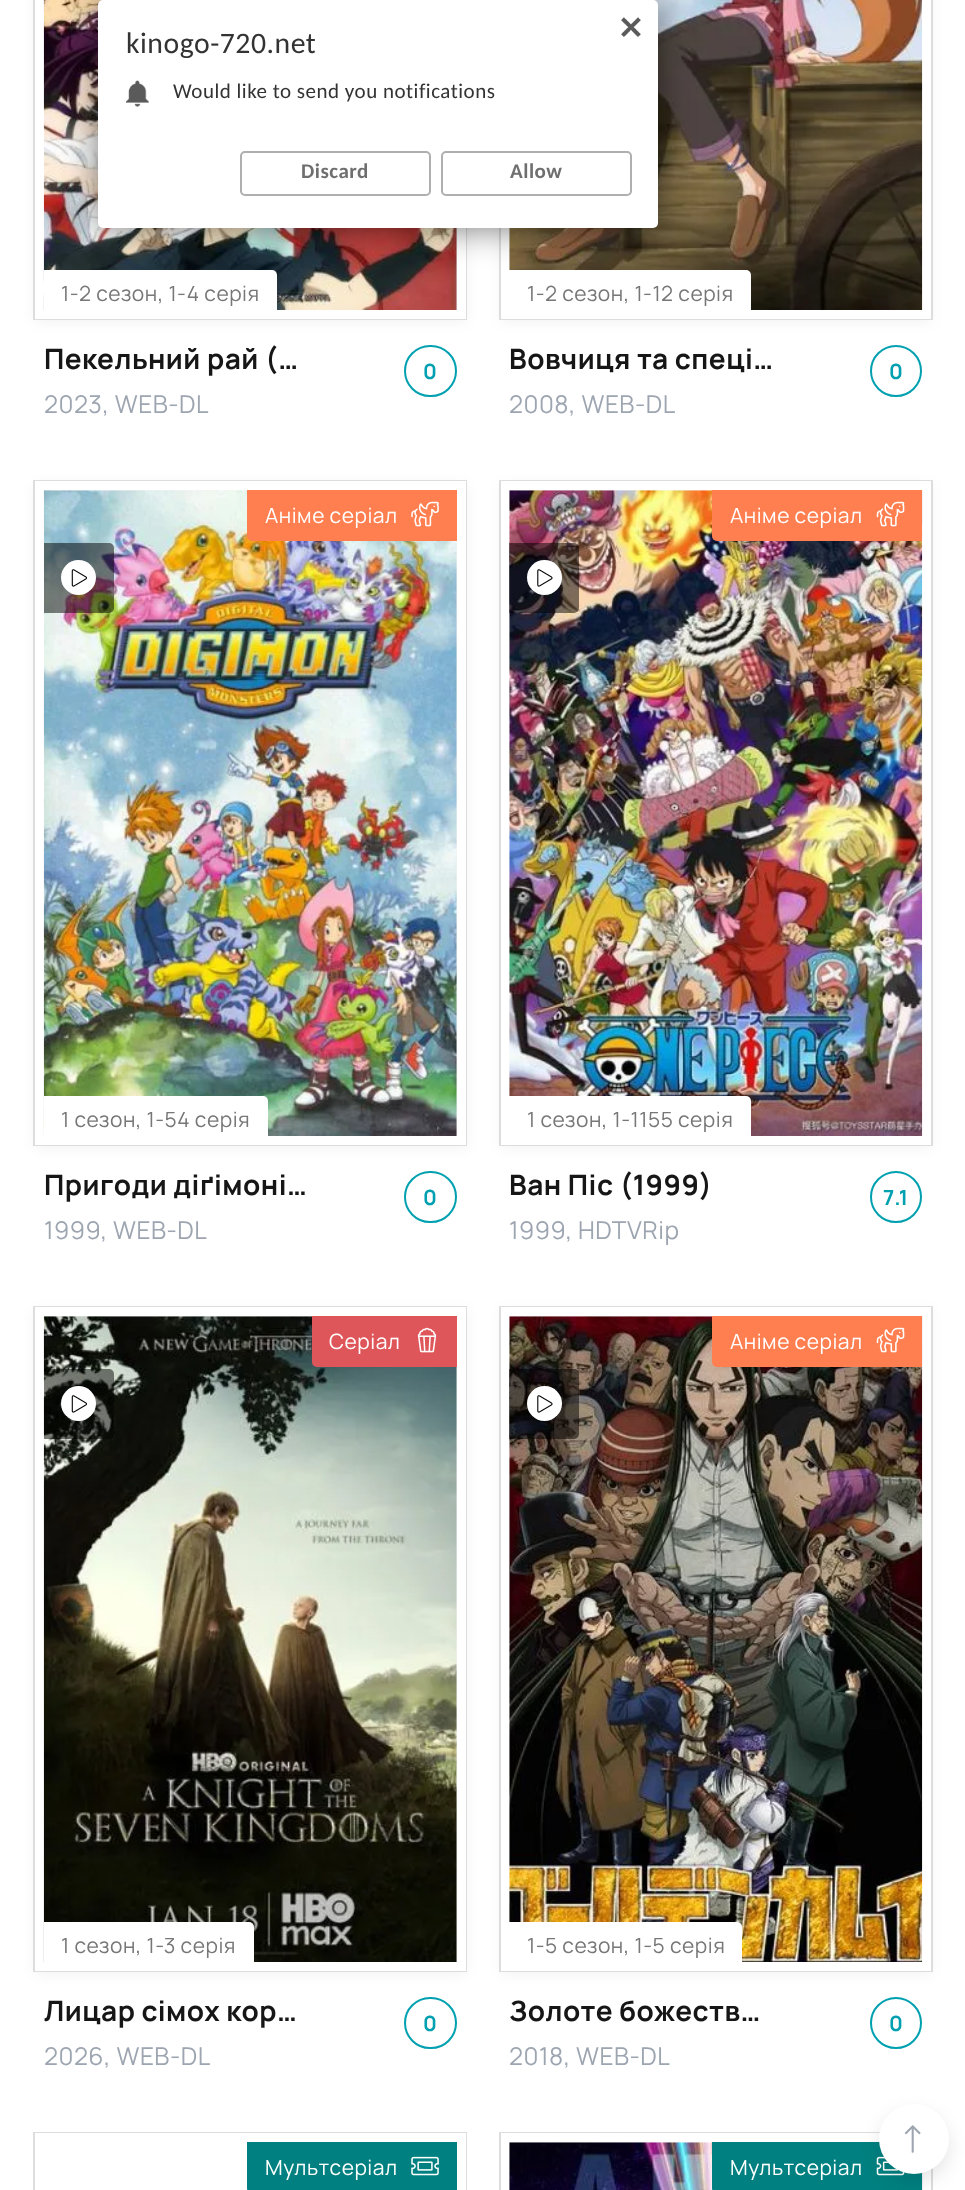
(async () => {
const canvas = document.querySelector("canvas")
canvas.width = 965
canvas.height = 2190
const c = canvas.getContext("2d")
c.miterLimit = 4
c.fontKerning = "normal"
function T(s,x,y){c.fillText(s,x,y)}
function R(x,y,w,h){c.fillRect(x,y,w,h)}
function Q(x,y,w,h,r){c.beginPath();c.roundRect(x,y,w,h,r);c.fill()}
async function I(src,x,y,w,h){const img=new Image();img.src=src;await img.decode();c.drawImage(img,x,y,w,h)}
let path
c.fillStyle="#fff"
R(0,0,965,2190)
c.fillStyle="#0000000d"
c.filter="blur(7px)"
c.beginPath()
c.rect(35,-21,431,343)
c.fill()
c.filter="none"
c.strokeStyle="#ddd"
c.lineWidth=2
c.strokeRect(34,-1,432,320)
c.strokeStyle="#fff"
c.lineWidth=9
c.strokeRect(39.5,-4.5,422,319)
await I("3.png",43,0,414,310)
c.fillStyle="#fff"
c.beginPath()
c.roundRect(44,270,233,40,[0,5,0,0])
c.fill()
c.fillStyle="#0000000d"
c.filter="blur(7px)"
c.beginPath()
c.rect(501,-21,430,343)
c.fill()
c.filter="none"
c.strokeStyle="#ddd"
c.lineWidth=2
c.strokeRect(500,-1,432,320)
c.strokeStyle="#fff"
c.lineWidth=9
c.strokeRect(505.5,-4.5,421,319)
await I("4.png",509,0,414,310)
c.fillStyle="#fff"
c.beginPath()
c.roundRect(509,270,242,40,[0,5,0,0])
c.fill()
c.fillStyle="#0000008a"
c.filter="blur(17.5px)"
c.beginPath()
c.roundRect(98,0,560,228,5)
c.fill()
c.filter="none"
c.fillStyle="#fff"
Q(98,0,560,228,5)
await I("1.png",621,17,20,20)
c.letterSpacing="0.5px"
c.font="29.75px Carlito"
c.fillStyle="#333"
T("kinogo-720.net",126,53)
await I("2.png",126,80,23,27)
c.font="21px Carlito"
T("Would like to send you notifications",173,98)
c.beginPath()
c.roundRect(241,152,189,43,4)
c.strokeStyle="#afafaf"
c.lineWidth=2
c.stroke()
c.font="bold 21px Carlito"
c.fillStyle="#6f6f6f"
T("Discard",301,178)
c.beginPath()
c.roundRect(442,152,189,43,4)
c.stroke()
T("Allow",510,178)
c.font="200 21px Manrope"
c.fillStyle="#777"
T("1-2 сезон, 1-4 серія",61,301)
c.font="200 28px 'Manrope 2'"
c.fillStyle="#161616"
T("Пекельний рай (…",44,369)
c.beginPath()
c.roundRect(405,346,51,50,25)
c.strokeStyle="#00a0b0"
c.stroke()
c.font="200 21px 'Manrope 2'"
c.fillStyle="#00a0b0"
T("0",423,379)
c.font="200 24.5px Manrope"
c.fillStyle="#9da5b1"
T("2023, WEB-DL",44,413)
c.font="200 21px Manrope"
c.fillStyle="#777"
T("1-2 сезон, 1-12 серія",527,301)
c.font="200 28px 'Manrope 2'"
c.fillStyle="#161616"
T("Вовчиця та спеці…",509,369)
c.beginPath()
c.arc(896,371,25,0,7)
c.stroke()
c.font="200 21px 'Manrope 2'"
c.fillStyle="#00a0b0"
T("0",889,379)
c.font="200 24.5px Manrope"
c.fillStyle="#9da5b1"
T("2008, WEB-DL",509,413)
c.fillStyle="#0000000d"
c.filter="blur(7px)"
c.beginPath()
c.rect(35,485,431,663)
c.fill()
c.filter="none"
c.strokeStyle="#ddd"
c.strokeRect(34,481,432,664)
c.strokeStyle="#fff"
c.lineWidth=9
c.strokeRect(39.5,485.5,422,655)
await I("5.png",43,490,414,646)
c.fillStyle="#ff7f50"
c.beginPath()
c.roundRect(247,490,210,51,[0,0,0,5])
c.fill()
c.font="200 21px Manrope"
c.fillStyle="#fff"
T("Аніме серіал",265,523)
await I("6.png",411,501,28,26)
c.fillStyle="#00000080"
c.beginPath()
c.roundRect(44,543,70,70,[0,5,5,0])
c.fill()
c.fillStyle="#fff"
c.beginPath()
c.arc(78.5,577.5,17.5,0,7)
c.fill()
await I("7.png",71,569,16,18)
c.beginPath()
c.roundRect(44,1096,224,40,[0,5,0,0])
c.fill()
c.fillStyle="#777"
T("1 сезон, 1-54 серія",61,1127)
c.font="200 28px 'Manrope 2'"
c.fillStyle="#161616"
T("Пригоди діґімоні…",44,1195)
c.beginPath()
c.roundRect(405,1172,51,50,25)
c.strokeStyle="#00a0b0"
c.lineWidth=2
c.stroke()
c.font="200 21px 'Manrope 2'"
c.fillStyle="#00a0b0"
T("0",423,1205)
c.font="200 24.5px Manrope"
c.fillStyle="#9da5b1"
T("1999, WEB-DL",44,1239)
c.fillStyle="#0000000d"
c.filter="blur(7px)"
c.beginPath()
c.rect(501,485,430,663)
c.fill()
c.filter="none"
c.strokeStyle="#ddd"
c.strokeRect(500,481,432,664)
c.strokeStyle="#fff"
c.lineWidth=9
c.strokeRect(505.5,485.5,421,655)
await I("8.png",509,490,414,646)
c.fillStyle="#ff7f50"
c.beginPath()
c.roundRect(712,490,210,51,[0,0,0,5])
c.fill()
c.font="200 21px Manrope"
c.fillStyle="#fff"
T("Аніме серіал",730,523)
await I("9.png",876,501,29,26)
c.fillStyle="#00000080"
c.beginPath()
c.roundRect(509,543,70,70,[0,5,5,0])
c.fill()
c.fillStyle="#fff"
c.beginPath()
c.arc(544.5,577.5,17.5,0,7)
c.fill()
await I("10.png",537,569,16,18)
c.beginPath()
c.roundRect(509,1096,242,40,[0,5,0,0])
c.fill()
c.fillStyle="#777"
T("1 сезон, 1-1155 серія",527,1127)
c.font="200 28px 'Manrope 2'"
c.fillStyle="#161616"
T("Ван Піс (1999)",509,1195)
c.beginPath()
c.arc(896,1197,25,0,7)
c.strokeStyle="#00a0b0"
c.lineWidth=2
c.stroke()
c.font="200 21px 'Manrope 2'"
c.fillStyle="#00a0b0"
T("7.1",883,1205)
c.font="200 24.5px Manrope"
c.fillStyle="#9da5b1"
T("1999, HDTVRip",509,1239)
c.fillStyle="#0000000d"
c.filter="blur(7px)"
c.beginPath()
c.rect(35,1311,431,663)
c.fill()
c.filter="none"
c.strokeStyle="#ddd"
c.strokeRect(34,1307,432,664)
c.strokeStyle="#fff"
c.lineWidth=9
c.strokeRect(39.5,1311.5,422,655)
await I("11.png",43,1316,414,646)
c.fillStyle="#df565a"
c.beginPath()
c.roundRect(312,1316,145,51,[0,0,0,5])
c.fill()
c.font="200 21px Manrope"
c.fillStyle="#fff"
T("Серіал",329,1349)
await I("12.png",417,1327,20,26)
c.fillStyle="#00000080"
c.beginPath()
c.roundRect(44,1369,70,70,[0,5,5,0])
c.fill()
c.fillStyle="#fff"
c.beginPath()
c.arc(78.5,1403.5,17.5,0,7)
c.fill()
await I("7.png",71,1395,16,18)
c.beginPath()
c.roundRect(44,1922,210,40,[0,5,0,0])
c.fill()
c.fillStyle="#777"
T("1 сезон, 1-3 серія",61,1953)
c.font="200 28px 'Manrope 2'"
c.fillStyle="#161616"
T("Лицар сімох кор…",44,2021)
c.beginPath()
c.roundRect(405,1998,51,50,25)
c.strokeStyle="#00a0b0"
c.lineWidth=2
c.stroke()
c.font="200 21px 'Manrope 2'"
c.fillStyle="#00a0b0"
T("0",423,2031)
c.font="200 24.5px Manrope"
c.fillStyle="#9da5b1"
T("2026, WEB-DL",44,2065)
c.fillStyle="#0000000d"
c.filter="blur(7px)"
c.beginPath()
c.rect(501,1311,430,663)
c.fill()
c.filter="none"
c.strokeStyle="#ddd"
c.strokeRect(500,1307,432,664)
c.strokeStyle="#fff"
c.lineWidth=9
c.strokeRect(505.5,1311.5,421,655)
await I("13.png",509,1316,414,646)
c.fillStyle="#ff7f50"
c.beginPath()
c.roundRect(712,1316,210,51,[0,0,0,5])
c.fill()
c.font="200 21px Manrope"
c.fillStyle="#fff"
T("Аніме серіал",730,1349)
await I("9.png",876,1327,29,26)
c.fillStyle="#00000080"
c.beginPath()
c.roundRect(509,1369,70,70,[0,5,5,0])
c.fill()
c.fillStyle="#fff"
c.beginPath()
c.arc(544.5,1403.5,17.5,0,7)
c.fill()
await I("10.png",537,1395,16,18)
c.beginPath()
c.roundRect(509,1922,233,40,[0,5,0,0])
c.fill()
c.fillStyle="#777"
T("1-5 сезон, 1-5 серія",527,1953)
c.font="200 28px 'Manrope 2'"
c.fillStyle="#161616"
T("Золоте божеств…",509,2021)
c.beginPath()
c.arc(896,2023,25,0,7)
c.strokeStyle="#00a0b0"
c.lineWidth=2
c.stroke()
c.font="200 21px 'Manrope 2'"
c.fillStyle="#00a0b0"
T("0",889,2031)
c.font="200 24.5px Manrope"
c.fillStyle="#9da5b1"
T("2018, WEB-DL",509,2065)
c.strokeStyle="#ddd"
c.strokeRect(34,2133,432,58)
c.strokeStyle="#fff"
c.lineWidth=9
c.strokeRect(39.5,2137.5,422,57)
c.fillStyle="#008080"
path = new Path2D("M247 2142h210v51h-205c-3 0-5-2-5-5z")
c.fill(path)
c.font="200 21px Manrope"
c.fillStyle="#fff"
T("Мультсеріал",265,2175)
await I("14.png",411,2156,28,20)
c.strokeStyle="#ddd"
c.lineWidth=2
c.strokeRect(500,2133,432,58)
c.strokeStyle="#fff"
c.lineWidth=9
c.strokeRect(505.5,2137.5,421,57)
await I("15.png",509,2142,414,48)
c.fillStyle="#008080"
path = new Path2D("M712 2142h210v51h-205c-3 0-5-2-5-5z")
c.fill(path)
c.fillStyle="#fff"
T("Мультсеріал",730,2175)
await I("16.png",876,2156,29,20)
c.fillStyle="#0000001a"
c.filter="blur(9px)"
c.beginPath()
c.roundRect(879,2112,70,70,35)
c.fill()
c.filter="none"
c.fillStyle="#fff"
c.beginPath()
c.arc(914,2139,35,0,7)
c.fill()
await I("17.png",904,2125,17,28)
})()
